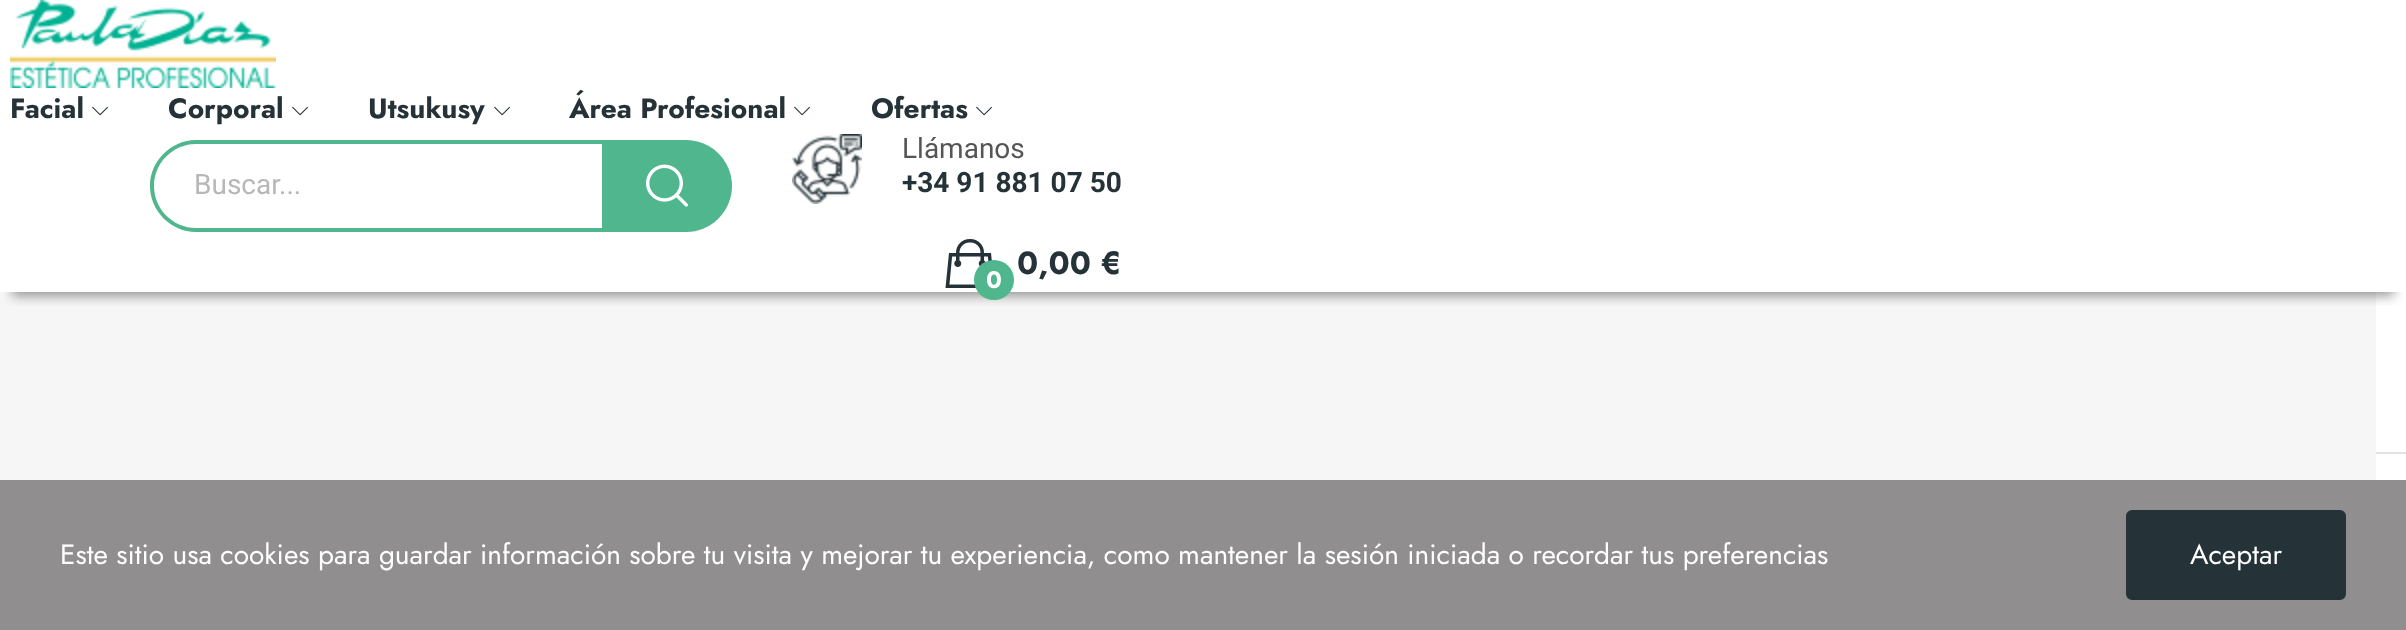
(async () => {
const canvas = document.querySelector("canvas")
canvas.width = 2406
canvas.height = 630
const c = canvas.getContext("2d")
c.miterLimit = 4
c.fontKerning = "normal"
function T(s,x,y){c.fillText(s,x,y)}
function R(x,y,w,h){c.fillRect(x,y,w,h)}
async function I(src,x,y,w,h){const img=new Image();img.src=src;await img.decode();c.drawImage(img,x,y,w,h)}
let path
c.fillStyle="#fff"
R(0,0,2406,630)
c.fillStyle="#f6f6f6"
R(0,292,2376,188)
c.save()
c.beginPath()
c.rect(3,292,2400,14)
c.clip()
c.fillStyle="#00000066"
c.filter="blur(6px)"
c.beginPath()
c.rect(12,28,2382,268)
c.fill()
c.filter="none"
c.restore()
await I("1.png",10,0,266,88)
c.font="bold 28px Jost"
c.fillStyle="#253237"
T("Facial",10,118)
await I("2.png",92,106,16,10)
T("Corporal",168,118)
await I("2.png",292,106,16,10)
T("Utsukusy",368,118)
await I("2.png",494,106,16,10)
T("Área Profesional",569,118)
await I("2.png",794,106,16,10)
T("Ofertas",871,118)
await I("2.png",976,106,16,10)
c.fillStyle="#4fb68d"
path = new Path2D("M196 140h406v92h-406c-25 0-46-21-46-46c0-25 21-46 46-46zm0 4h406v84h-406c-23 0-42-19-42-42c0-23 19-42 42-42z")
c.fill(path,"evenodd")
c.font="28px Roboto"
c.fillStyle="#b7b7b7"
T("Buscar...",194,194)
c.fillStyle="#4fb68d"
c.beginPath()
c.roundRect(602,140,130,92,[0,46,46,0])
c.fill()
await I("3.png",646,164,42,43)
await I("4.png",792,134,70,70)
c.fillStyle="#555"
T("Llámanos",902,158)
c.font="bold 28px Roboto"
c.fillStyle="#253237"
T("+34 91 881 07 50",902,192)
await I("5.png",945,239,47,49)
c.fillStyle="#4fb68d"
c.beginPath()
c.arc(994,280,20,0,7)
c.fill()
c.font="bold 24px Jost"
c.fillStyle="#fff"
T("0",986,288)
c.font="bold 32px Jost"
c.fillStyle="#253237"
T("0,00 €",1017,274)
c.fillStyle="#e3e3e3"
R(2376,452,30,2)
c.fillStyle="#908e8f"
R(0,480,2406,150)
c.font="28px Jost"
c.fillStyle="#fff"
T("Este sitio usa cookies para guardar información sobre tu visita y mejorar tu experiencia, como mantener la sesión iniciada o recordar tus preferencias",60,564)
c.fillStyle="#253237"
c.beginPath()
c.roundRect(2128,512,216,86,4)
c.fill()
c.strokeStyle="#253237"
c.lineWidth=4
c.stroke()
c.fillStyle="#fff"
T("Aceptar",2190,564)
})()
